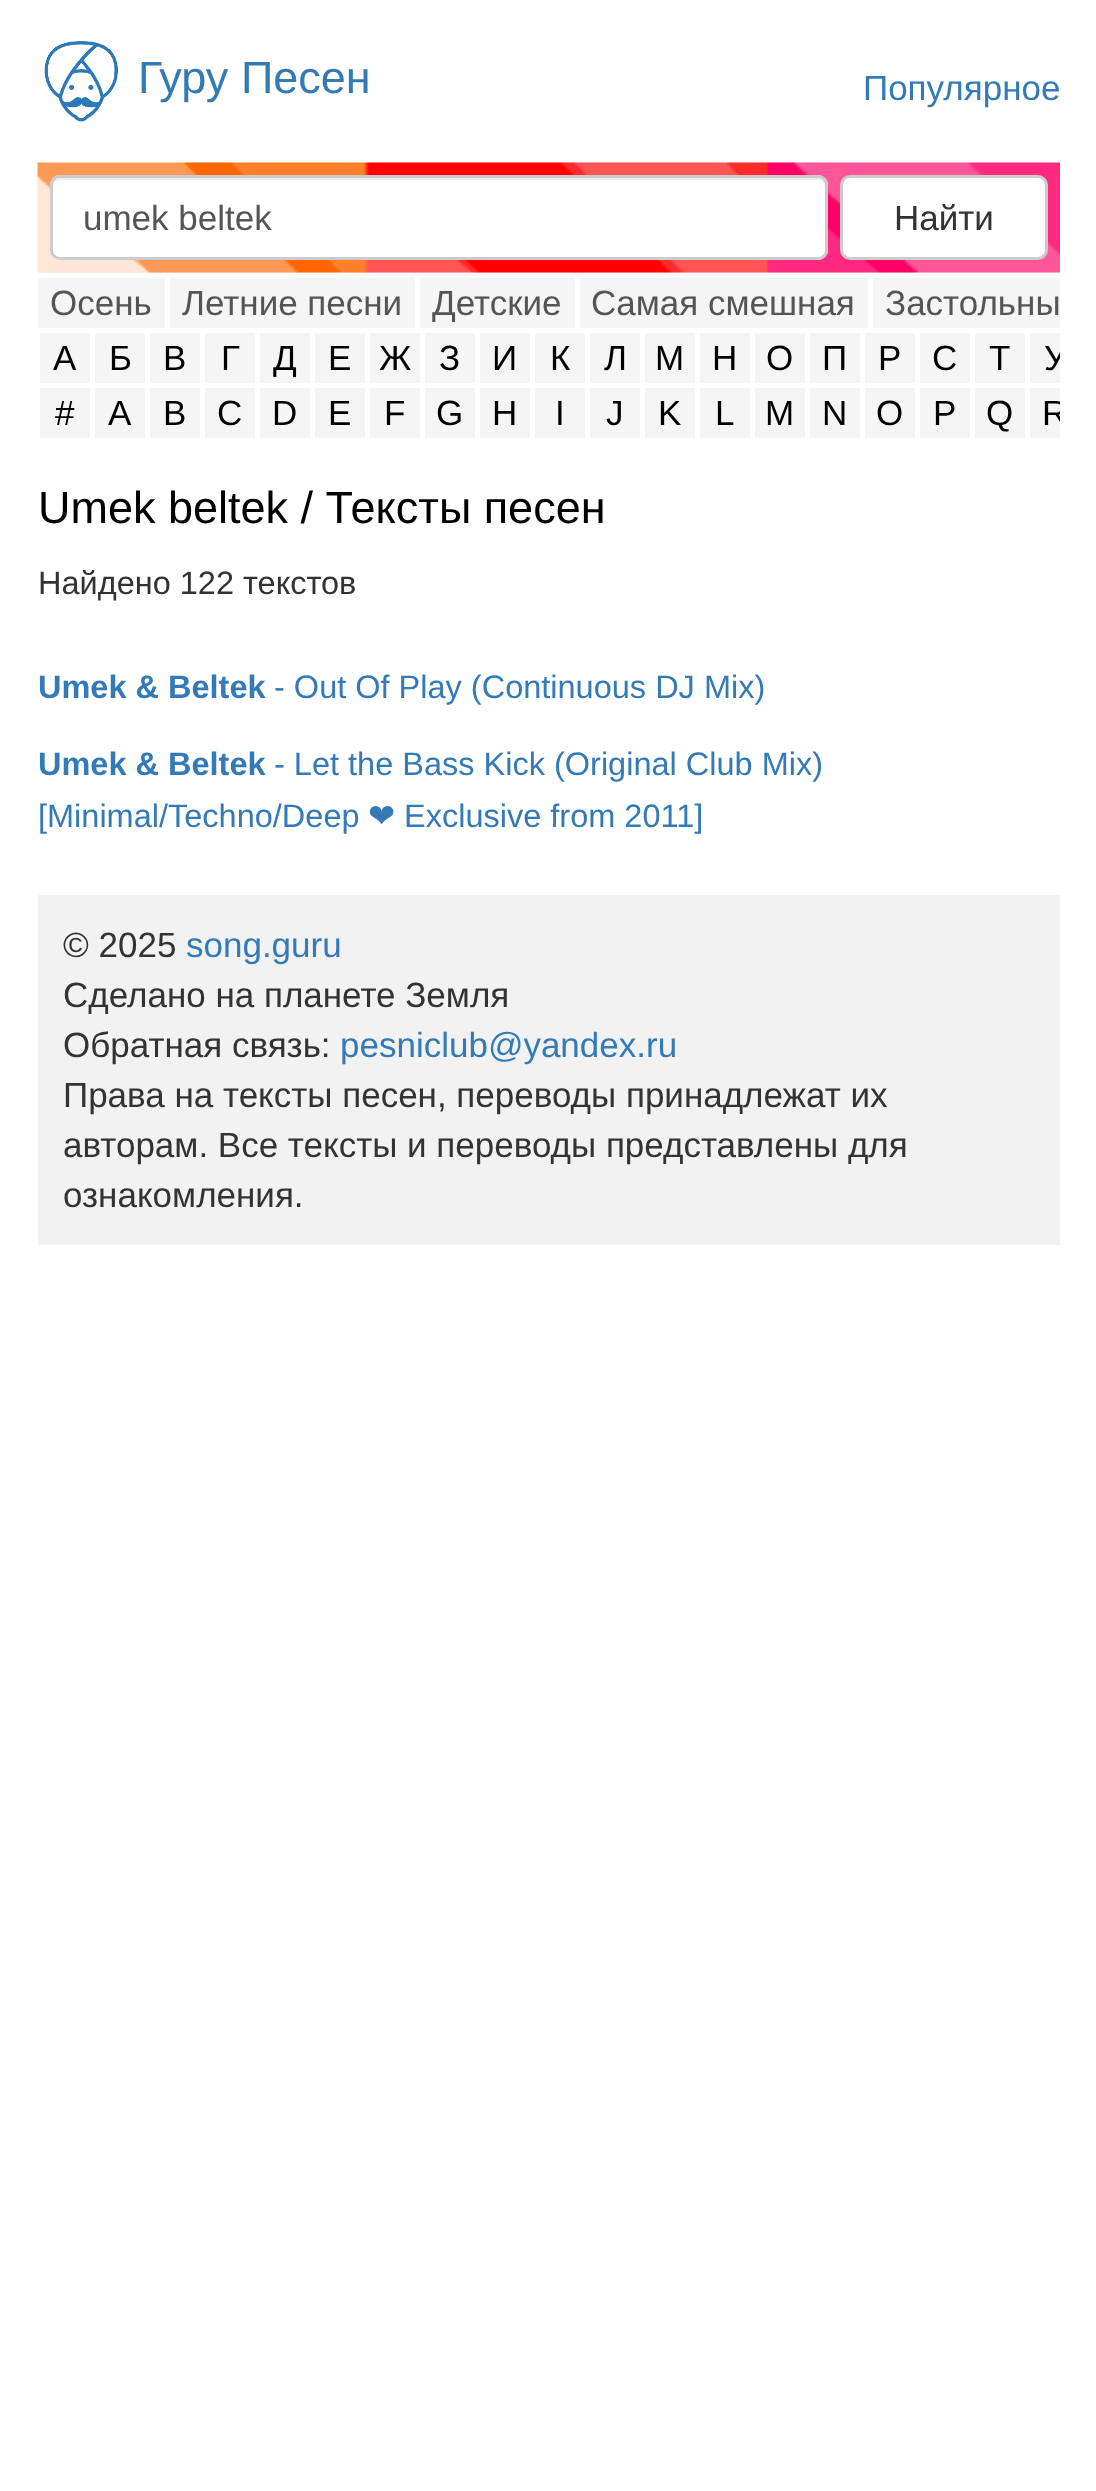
(async () => {
const canvas = document.querySelector("canvas")
canvas.width = 1096
canvas.height = 2491
const c = canvas.getContext("2d")
c.miterLimit = 4
c.fontKerning = "normal"
function T(s,x,y){c.fillText(s,x,y)}
function R(x,y,w,h){c.fillRect(x,y,w,h)}
function Q(x,y,w,h,r){c.beginPath();c.roundRect(x,y,w,h,r);c.fill()}
async function I(src,x,y,w,h){const img=new Image();img.src=src;await img.decode();c.drawImage(img,x,y,w,h)}
let path
c.fillStyle="#fff"
R(0,0,1096,2491)
await I("1.png",44,41,74,81)
c.font="45px Liberation Sans"
c.fillStyle="#337ab7"
T("Гуру Песен",138,93)
c.font="35px Liberation Sans"
T("Популярное",863,100)
c.fillStyle="#f5f5f5"
R(38,272,1022,1)
await I("2.png",37,162,1023,111)
c.fillStyle="#fff"
Q(50,175,778,85,10)
c.fillStyle="#ececec"
path = new Path2D("M60 180h758c4 0 7 3 7 8v-2c0-4-4-8-8-8h-756c-3 0-6 2-8 5c2-2 5-3 7-3z")
c.fill(path)
c.beginPath()
c.roundRect(51.5,176.5,775,82,8.5)
c.strokeStyle="#ccc"
c.lineWidth=3
c.stroke()
c.fillStyle="#555"
T("umek beltek",83,230)
c.fillStyle="#fff"
c.beginPath()
c.roundRect(841.5,176.5,205,82,8.5)
c.fill()
c.stroke()
c.fillStyle="#333"
T("Найти",894,230)
c.fillStyle="#f5f5f5"
R(38,278,127,50)
c.fillStyle="#555"
T("Осень",50,315)
c.fillStyle="#f5f5f5"
R(170,278,245,50)
c.fillStyle="#555"
T("Летние песни",182,315)
c.fillStyle="#f5f5f5"
R(420,278,155,50)
c.fillStyle="#555"
T("Детские",432,315)
c.fillStyle="#f5f5f5"
R(580,278,288,50)
c.fillStyle="#555"
T("Cамая смешная",591,315)
c.fillStyle="#f5f5f5"
R(873,278,187,50)
c.fillStyle="#555"
T("Застольны",885,315)
c.fillStyle="#f5f5f5"
R(40,333,50,50)
c.fillStyle="#000"
T("А",53,370)
c.fillStyle="#f5f5f5"
R(95,333,50,50)
c.fillStyle="#000"
T("Б",109,370)
c.fillStyle="#f5f5f5"
R(150,333,50,50)
c.fillStyle="#000"
T("В",163,370)
c.fillStyle="#f5f5f5"
R(205,333,50,50)
c.fillStyle="#000"
T("Г",221,370)
c.fillStyle="#f5f5f5"
R(260,333,50,50)
c.fillStyle="#000"
T("Д",273,370)
c.fillStyle="#f5f5f5"
R(315,333,50,50)
c.fillStyle="#000"
T("Е",328,370)
c.fillStyle="#f5f5f5"
R(370,333,50,50)
c.fillStyle="#000"
T("Ж",379,370)
c.fillStyle="#f5f5f5"
R(425,333,50,50)
c.fillStyle="#000"
T("З",439,370)
c.fillStyle="#f5f5f5"
R(480,333,50,50)
c.fillStyle="#000"
T("И",492,370)
c.fillStyle="#f5f5f5"
R(535,333,50,50)
c.fillStyle="#000"
T("К",550,370)
c.fillStyle="#f5f5f5"
R(590,333,50,50)
c.fillStyle="#000"
T("Л",604,370)
c.fillStyle="#f5f5f5"
R(645,333,50,50)
c.fillStyle="#000"
T("М",655,370)
c.fillStyle="#f5f5f5"
R(700,333,50,50)
c.fillStyle="#000"
T("Н",712,370)
c.fillStyle="#f5f5f5"
R(755,333,50,50)
c.fillStyle="#000"
T("О",766,370)
c.fillStyle="#f5f5f5"
R(810,333,50,50)
c.fillStyle="#000"
T("П",822,370)
c.fillStyle="#f5f5f5"
R(865,333,50,50)
c.fillStyle="#000"
T("Р",878,370)
c.fillStyle="#f5f5f5"
R(920,333,50,50)
c.fillStyle="#000"
T("С",932,370)
c.fillStyle="#f5f5f5"
R(975,333,50,50)
c.fillStyle="#000"
T("Т",989,370)
c.fillStyle="#f5f5f5"
R(1030,333,30,50)
c.save()
c.beginPath()
c.rect(38,330,1022,110)
c.clip()
c.fillStyle="#000"
T("У",1044,370)
c.restore()
R(40,388,50,50)
c.fillStyle="#000"
T("#",55,425)
c.fillStyle="#f5f5f5"
R(95,388,50,50)
c.fillStyle="#000"
T("A",108,425)
c.fillStyle="#f5f5f5"
R(150,388,50,50)
c.fillStyle="#000"
T("B",163,425)
c.fillStyle="#f5f5f5"
R(205,388,50,50)
c.fillStyle="#000"
T("C",217,425)
c.fillStyle="#f5f5f5"
R(260,388,50,50)
c.fillStyle="#000"
T("D",272,425)
c.fillStyle="#f5f5f5"
R(315,388,50,50)
c.fillStyle="#000"
T("E",328,425)
c.fillStyle="#f5f5f5"
R(370,388,50,50)
c.fillStyle="#000"
T("F",384,425)
c.fillStyle="#f5f5f5"
R(425,388,50,50)
c.fillStyle="#000"
T("G",436,425)
c.fillStyle="#f5f5f5"
R(480,388,50,50)
c.fillStyle="#000"
T("H",492,425)
c.fillStyle="#f5f5f5"
R(535,388,50,50)
c.fillStyle="#000"
T("I",555,425)
c.fillStyle="#f5f5f5"
R(590,388,50,50)
c.fillStyle="#000"
T("J",606,425)
c.fillStyle="#f5f5f5"
R(645,388,50,50)
c.fillStyle="#000"
T("K",658,425)
c.fillStyle="#f5f5f5"
R(700,388,50,50)
c.fillStyle="#000"
T("L",715,425)
c.fillStyle="#f5f5f5"
R(755,388,50,50)
c.fillStyle="#000"
T("M",765,425)
c.fillStyle="#f5f5f5"
R(810,388,50,50)
c.fillStyle="#000"
T("N",822,425)
c.fillStyle="#f5f5f5"
R(865,388,50,50)
c.fillStyle="#000"
T("O",876,425)
c.fillStyle="#f5f5f5"
R(920,388,50,50)
c.fillStyle="#000"
T("P",933,425)
c.fillStyle="#f5f5f5"
R(975,388,50,50)
c.fillStyle="#000"
T("Q",986,425)
c.fillStyle="#f5f5f5"
R(1030,388,30,50)
c.save()
c.beginPath()
c.rect(38,330,1022,110)
c.clip()
c.fillStyle="#000"
T("R",1042,425)
c.restore()
c.font="45px Liberation Sans"
c.fillStyle="#000"
T("Umek beltek / Тексты песен",38,523)
c.font="32.5px Liberation Sans"
c.fillStyle="#333"
T("Найдено 122 текстов",38,594)
c.font="bold 32.5px Liberation Sans"
c.fillStyle="#337ab7"
T("Umek & Beltek",38,698)
c.font="32.5px Liberation Sans"
T("- Out Of Play (Continuous DJ Mix)",274,698)
c.font="bold 32.5px Liberation Sans"
T("Umek & Beltek",38,775)
c.font="32.5px Liberation Sans"
T("- Let the Bass Kick (Original Club Mix)",274,775)
T("[Minimal/Techno/Deep",38,827)
c.font="32.5px DejaVu Sans"
T("❤",368,827)
c.font="32.5px Liberation Sans"
T("Exclusive from 2011]",404,827)
c.fillStyle="#f2f2f2"
R(38,895,1022,350)
c.font="35px Liberation Sans"
c.fillStyle="#333"
T("© 2025",63,957)
c.fillStyle="#337ab7"
T("song.guru",186,957)
c.fillStyle="#333"
T("Сделано на планете Земля",63,1007)
T("Обратная связь:",63,1057)
c.fillStyle="#337ab7"
T("pesniclub@yandex.ru",340,1057)
c.fillStyle="#333"
T("Права на тексты песен, переводы принадлежат их",63,1107)
T("авторам. Все тексты и переводы представлены для",63,1157)
T("ознакомления.",63,1207)
})()
